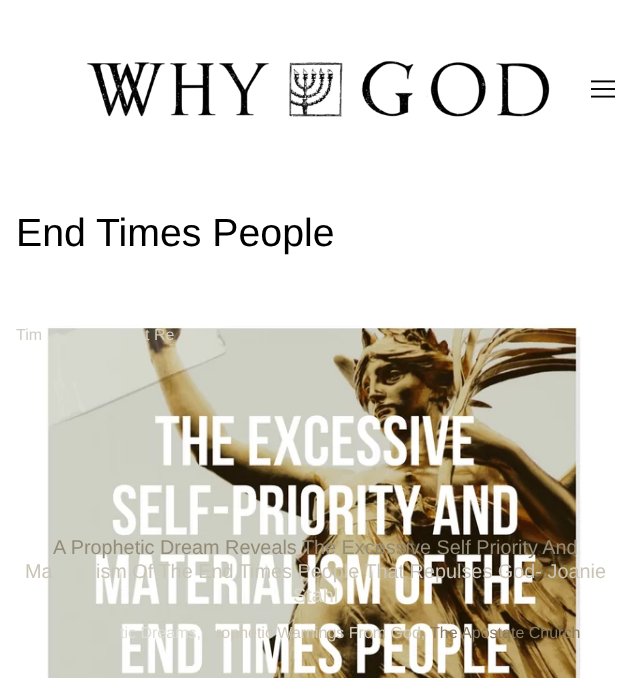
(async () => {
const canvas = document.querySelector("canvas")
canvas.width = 631
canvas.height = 678
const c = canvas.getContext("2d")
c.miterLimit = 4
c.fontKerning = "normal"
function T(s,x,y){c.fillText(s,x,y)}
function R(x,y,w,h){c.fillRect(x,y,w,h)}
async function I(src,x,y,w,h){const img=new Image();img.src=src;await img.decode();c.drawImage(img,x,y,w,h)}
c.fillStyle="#fff"
R(0,0,631,678)
await I("1.png",87,61,463,56)
await I("2.png",591,80,24,18)
c.font="39.25px Liberation Sans"
c.fillStyle="#000"
T("End Times People",16,246)
await I("3.png",46,322,536,356)
c.font="16px Liberation Sans"
c.fillStyle="#cecdc2"
T("Tim",16,340)
T("t Re",145,340)
c.font="19.85px Liberation Sans"
c.fillStyle="#948c77"
T("A Prophetic Dream Reveals The Excessive Self Priority And",53,554)
c.fillStyle="#c9c4b6"
T("Ma",25,578)
T("ism Of The End Times People That Repulses God- Joanie",96,578)
c.fillStyle="#ddd8c9"
T("Stahl",293,602)
c.font="16px Liberation Sans"
c.fillStyle="#ddded6"
T("tic Dreams,",120,638)
c.fillStyle="#cfc9b8"
T("rophetic Warnings From God,",216,638)
c.fillStyle="#8b7b5f"
T("The Apostate Church",430,638)
})()
